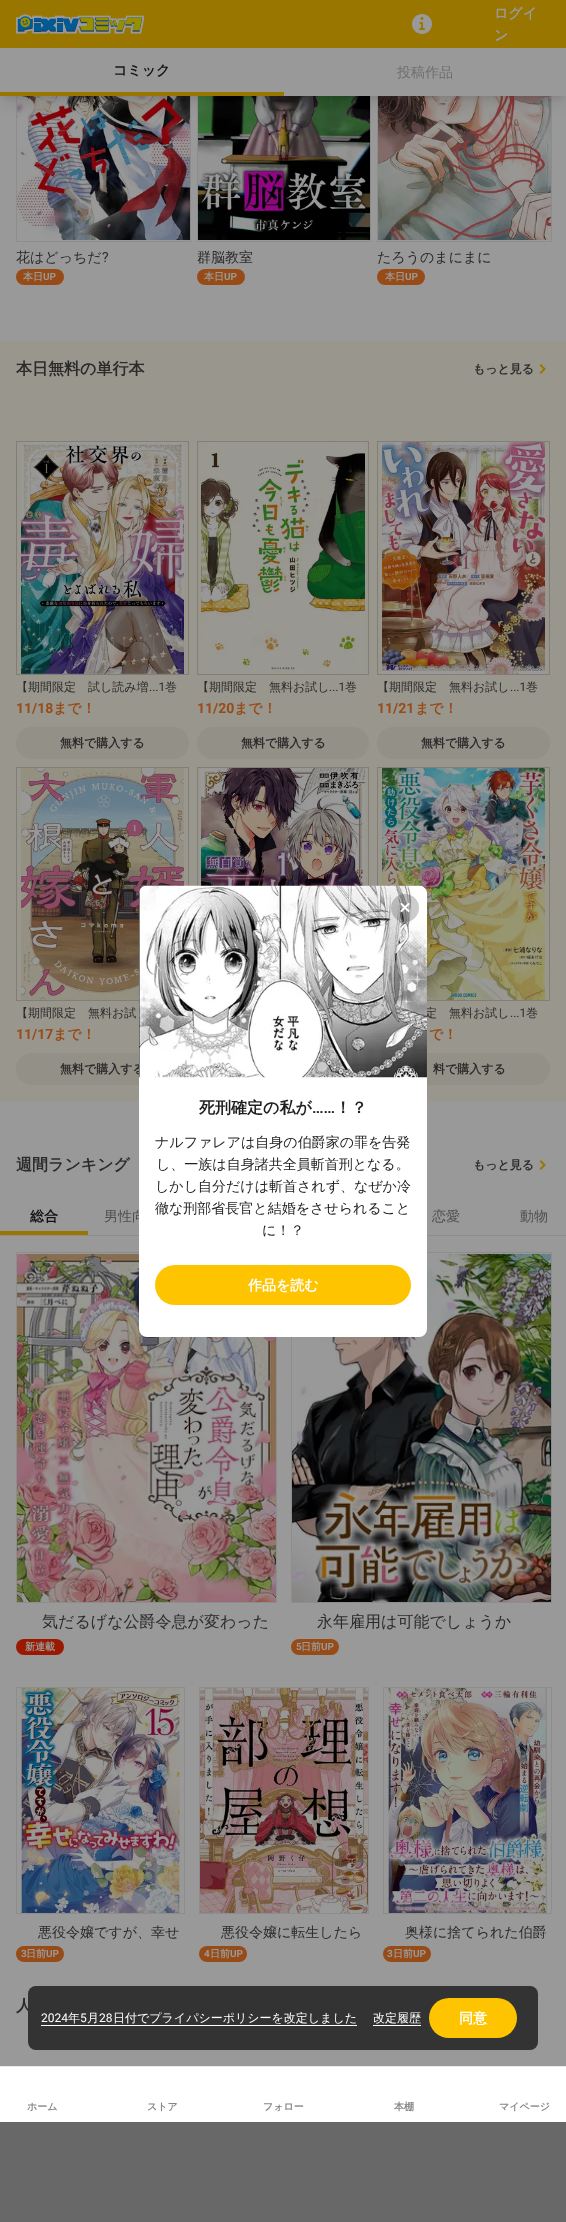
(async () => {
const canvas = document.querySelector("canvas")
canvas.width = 566
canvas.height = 2222
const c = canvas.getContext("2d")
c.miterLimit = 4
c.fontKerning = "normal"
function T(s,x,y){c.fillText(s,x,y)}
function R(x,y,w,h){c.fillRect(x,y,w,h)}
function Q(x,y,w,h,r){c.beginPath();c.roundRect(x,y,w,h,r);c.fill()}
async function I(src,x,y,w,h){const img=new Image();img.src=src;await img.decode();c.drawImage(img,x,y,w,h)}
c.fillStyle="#999"
R(0,0,566,2222)
c.strokeStyle="#8d8d8d"
c.strokeRect(16.5,7.5,174,234)
await I("3.png",17,96,173,144)
c.strokeRect(197.5,7.5,173,234)
await I("4.png",198,96,172,144)
c.strokeRect(377.5,7.5,174,234)
await I("5.png",378,96,173,144)
c.fillStyle="#0000001a"
c.filter="blur(3px)"
c.beginPath()
c.rect(4,56,558,40)
c.fill()
c.filter="none"
c.filter="blur(7.5px)"
c.beginPath()
c.rect(3,61,560,42)
c.fill()
c.filter="none"
c.fillStyle="#997600"
R(0,0,566,48)
await I("1.png",16,14,128,20)
await I("2.png",412,14,20,20)
c.font="bold 14px WenQuanYi Zen Hei"
c.fillStyle="#999"
T("ログイ",494,18)
T("ン",494,40)
R(0,48,566,48)
c.fillStyle="#997600"
R(0,92,284,4)
c.fillStyle="#131313"
T("コミック",113,75)
c.font="500 14px WenQuanYi Zen Hei"
c.fillStyle="#6e6e6e"
T("投稿作品",397,77)
c.fillStyle="#2b2b2b"
T("花はどっちだ",16,262)
c.font="14px Roboto"
T("?",102,262)
c.fillStyle="#974b17"
Q(16,269,48,16,8)
c.font="bold 10px WenQuanYi Zen Hei"
c.fillStyle="#999"
T("本日",23,280)
c.font="bold 10px Roboto"
T("UP",43,280)
c.font="500 14px WenQuanYi Zen Hei"
c.fillStyle="#2b2b2b"
T("群脳教室",197,262)
c.fillStyle="#974b17"
Q(197,269,48,16,8)
c.font="bold 10px WenQuanYi Zen Hei"
c.fillStyle="#999"
T("本日",204,280)
c.font="bold 10px Roboto"
T("UP",224,280)
c.font="500 14px WenQuanYi Zen Hei"
c.fillStyle="#2b2b2b"
T("たろうのまにまに",377,262)
c.fillStyle="#974b17"
Q(377,269,48,16,8)
c.font="bold 10px WenQuanYi Zen Hei"
c.fillStyle="#999"
T("本日",385,280)
c.font="bold 10px Roboto"
T("UP",405,280)
c.fillStyle="#99968d"
R(0,341,566,760)
c.font="bold 16px WenQuanYi Zen Hei"
c.fillStyle="#2b2b2b"
T("本日無料の単行本",16,374)
c.font="bold 12px WenQuanYi Zen Hei"
T("もっと見る",473,373)
await I("6.png",539,364,7,10)
c.strokeStyle="#807e76"
c.strokeRect(16.5,441.5,172,233)
await I("7.png",21,442,163,232)
c.font="500 12px WenQuanYi Zen Hei"
T("【期間限定　試し読み増",16,691)
c.font="12px Roboto"
T("...1",149,691)
c.font="500 12px WenQuanYi Zen Hei"
T("巻",165,691)
c.font="bold 14px Roboto"
c.fillStyle="#974b17"
T("11/18",16,713)
c.font="bold 14px WenQuanYi Zen Hei"
T("まで！",53,713)
c.fillStyle="#939088"
Q(16,727,173,32,16)
c.font="bold 12px WenQuanYi Zen Hei"
c.fillStyle="#2b2b2b"
T("無料で購入する",60,747)
c.strokeRect(197.5,441.5,171,233)
await I("8.png",201,442,164,232)
c.font="500 12px WenQuanYi Zen Hei"
T("【期間限定　無料お試し",197,691)
c.font="12px Roboto"
T("...1",329,691)
c.font="500 12px WenQuanYi Zen Hei"
T("巻",345,691)
c.font="bold 14px Roboto"
c.fillStyle="#974b17"
T("11/20",197,713)
c.font="bold 14px WenQuanYi Zen Hei"
T("まで！",234,713)
c.fillStyle="#939088"
Q(197,727,172,32,16)
c.font="bold 12px WenQuanYi Zen Hei"
c.fillStyle="#2b2b2b"
T("無料で購入する",241,747)
c.strokeRect(377.5,441.5,172,233)
await I("9.png",382,442,163,232)
c.font="500 12px WenQuanYi Zen Hei"
T("【期間限定　無料お試し",377,691)
c.font="12px Roboto"
T("...1",510,691)
c.font="500 12px WenQuanYi Zen Hei"
T("巻",526,691)
c.font="bold 14px Roboto"
c.fillStyle="#974b17"
T("11/21",377,713)
c.font="bold 14px WenQuanYi Zen Hei"
T("まで！",415,713)
c.fillStyle="#939088"
Q(377,727,173,32,16)
c.font="bold 12px WenQuanYi Zen Hei"
c.fillStyle="#2b2b2b"
T("無料で購入する",421,747)
c.strokeRect(197.5,767.5,171,233)
await I("10.png",201,768,164,118)
c.strokeRect(16.5,767.5,172,233)
await I("11.png",21,768,163,232)
c.font="500 12px WenQuanYi Zen Hei"
T("【期間限定　無料お試",16,1017)
c.font="bold 14px Roboto"
c.fillStyle="#974b17"
T("11/17",16,1039)
c.font="bold 14px WenQuanYi Zen Hei"
T("まで！",53,1039)
c.fillStyle="#939088"
Q(16,1053,173,32,16)
c.font="bold 12px WenQuanYi Zen Hei"
c.fillStyle="#2b2b2b"
T("無料で購入する",60,1073)
c.strokeRect(377.5,767.5,172,233)
await I("12.png",382,768,163,232)
c.font="500 12px WenQuanYi Zen Hei"
T("定　無料お試し",425,1017)
c.font="12px Roboto"
T("...1",510,1017)
c.font="500 12px WenQuanYi Zen Hei"
T("巻",526,1017)
c.font="bold 14px WenQuanYi Zen Hei"
c.fillStyle="#974b17"
T("で！",429,1039)
c.fillStyle="#939088"
Q(377,1053,173,32,16)
c.font="bold 12px WenQuanYi Zen Hei"
c.fillStyle="#2b2b2b"
T("料で購入する",433,1073)
c.font="bold 16px WenQuanYi Zen Hei"
T("週間ランキング",16,1170)
c.font="bold 12px WenQuanYi Zen Hei"
T("もっと見る",473,1169)
await I("13.png",539,1160,7,10)
c.fillStyle="#8d8d8d"
R(0,1235,566,1)
c.fillStyle="#997600"
R(0,1231,88,4)
c.font="bold 14px WenQuanYi Zen Hei"
c.fillStyle="#131313"
T("総合",30,1221)
c.font="500 14px WenQuanYi Zen Hei"
c.fillStyle="#505050"
T("男性向",104,1221)
T("恋愛",432,1221)
T("動物",520,1221)
c.strokeStyle="#8d8d8d"
c.strokeRect(16.5,1252.5,260,350)
await I("14.png",17,1254,259,348)
c.font="500 16px WenQuanYi Zen Hei"
c.fillStyle="#2b2b2b"
T("気だるげな公爵令息が変わった",42,1627)
c.fillStyle="#991a00"
Q(16,1639,48,16,8)
c.font="bold 10px WenQuanYi Zen Hei"
c.fillStyle="#999"
T("新連載",25,1650)
c.strokeRect(291.5,1252.5,260,350)
await I("15.png",292,1254,259,348)
c.font="500 16px WenQuanYi Zen Hei"
c.fillStyle="#2b2b2b"
T("永年雇用は可能でしょうか",317,1627)
c.fillStyle="#974b17"
Q(291,1639,48,16,8)
c.font="bold 10px Roboto"
c.fillStyle="#999"
T("5",296,1650)
c.font="bold 10px WenQuanYi Zen Hei"
T("日前",301,1650)
c.font="bold 10px Roboto"
T("UP",321,1650)
c.strokeRect(16.5,1687.5,168,226)
await I("16.png",17,1688,167,225)
c.font="500 14px WenQuanYi Zen Hei"
c.fillStyle="#2b2b2b"
T("悪役令嬢ですが、幸せ",38,1937)
c.fillStyle="#974b17"
Q(16,1946,48,16,8)
c.font="bold 10px Roboto"
c.fillStyle="#999"
T("3",21,1957)
c.font="bold 10px WenQuanYi Zen Hei"
T("日前",26,1957)
c.font="bold 10px Roboto"
T("UP",46,1957)
c.strokeRect(199.5,1687.5,169,226)
await I("17.png",200,1688,168,225)
c.font="500 14px WenQuanYi Zen Hei"
c.fillStyle="#2b2b2b"
T("悪役令嬢に転生したら",221,1937)
c.fillStyle="#974b17"
Q(199,1946,48,16,8)
c.font="bold 10px Roboto"
c.fillStyle="#999"
T("4",204,1957)
c.font="bold 10px WenQuanYi Zen Hei"
T("日前",210,1957)
c.font="bold 10px Roboto"
T("UP",230,1957)
c.strokeRect(383.5,1687.5,168,226)
await I("18.png",384,1688,164,225)
c.font="500 14px WenQuanYi Zen Hei"
c.fillStyle="#2b2b2b"
T("奥様に捨てられた伯爵",405,1937)
c.fillStyle="#974b17"
Q(383,1946,48,16,8)
c.font="bold 10px Roboto"
c.fillStyle="#999"
T("3",387,1957)
c.font="bold 10px WenQuanYi Zen Hei"
T("日前",393,1957)
c.font="bold 10px Roboto"
T("UP",413,1957)
c.font="bold 16px WenQuanYi Zen Hei"
c.fillStyle="#2b2b2b"
T("人",16,2011)
c.fillStyle="#fff"
Q(139,886,288,451,8)
await I("19.png",139,885,288,193)
c.fillStyle="#00000033"
c.beginPath()
c.arc(405,908,14,0,7)
c.fill()
await I("20.png",400,903,10,9)
c.fillStyle="#1f1f1f"
T("死刑確定の私が",199,1113)
c.font="600 16px Roboto"
T("……",312,1113)
c.font="bold 16px WenQuanYi Zen Hei"
T("！？",335,1113)
c.font="500 14px WenQuanYi Zen Hei"
T("ナルファレアは自身の伯爵家の罪を告発",155,1147)
T("し、一族は自身諸共全員斬首刑となる。",156,1169)
T("しかし自分だけは斬首されず、なぜか冷",155,1191)
T("徹な刑部省長官と結婚をさせられること",155,1213)
T("に！？",262,1235)
c.fillStyle="#ffc400"
Q(155,1265,256,40,20)
c.font="bold 14px WenQuanYi Zen Hei"
c.fillStyle="#fff"
T("作品を読む",248,1290)
c.fillStyle="#333"
Q(28,1986,510,64,8)
c.font="12px Roboto"
c.fillStyle="#fff"
T("2024",41,2022)
R(41,2025,316,1)
c.font="500 12px WenQuanYi Zen Hei"
T("年",68,2022)
c.font="12px Roboto"
T("5",80,2022)
c.font="500 12px WenQuanYi Zen Hei"
T("月",87,2022)
c.font="12px Roboto"
T("28",99,2022)
c.font="500 12px WenQuanYi Zen Hei"
T("日付でプライパシーポリシーを改定しました",113,2022)
T("改定履歴",373,2022)
R(373,2025,48,1)
c.fillStyle="#ffc400"
Q(429,1998,88,40,20)
c.font="bold 14px WenQuanYi Zen Hei"
c.fillStyle="#fff"
T("同意",459,2023)
R(0,2067,566,55)
c.fillStyle="#ebebeb"
R(0,2066,566,1)
c.font="bold 10px WenQuanYi Zen Hei"
c.fillStyle="#858585"
T("ホーム",27,2110)
T("ストア",147,2110)
T("フォロー",263,2110)
T("本棚",394,2110)
T("マイページ",499,2110)
c.fillStyle="#686868"
R(0,2122,566,100)
})()
